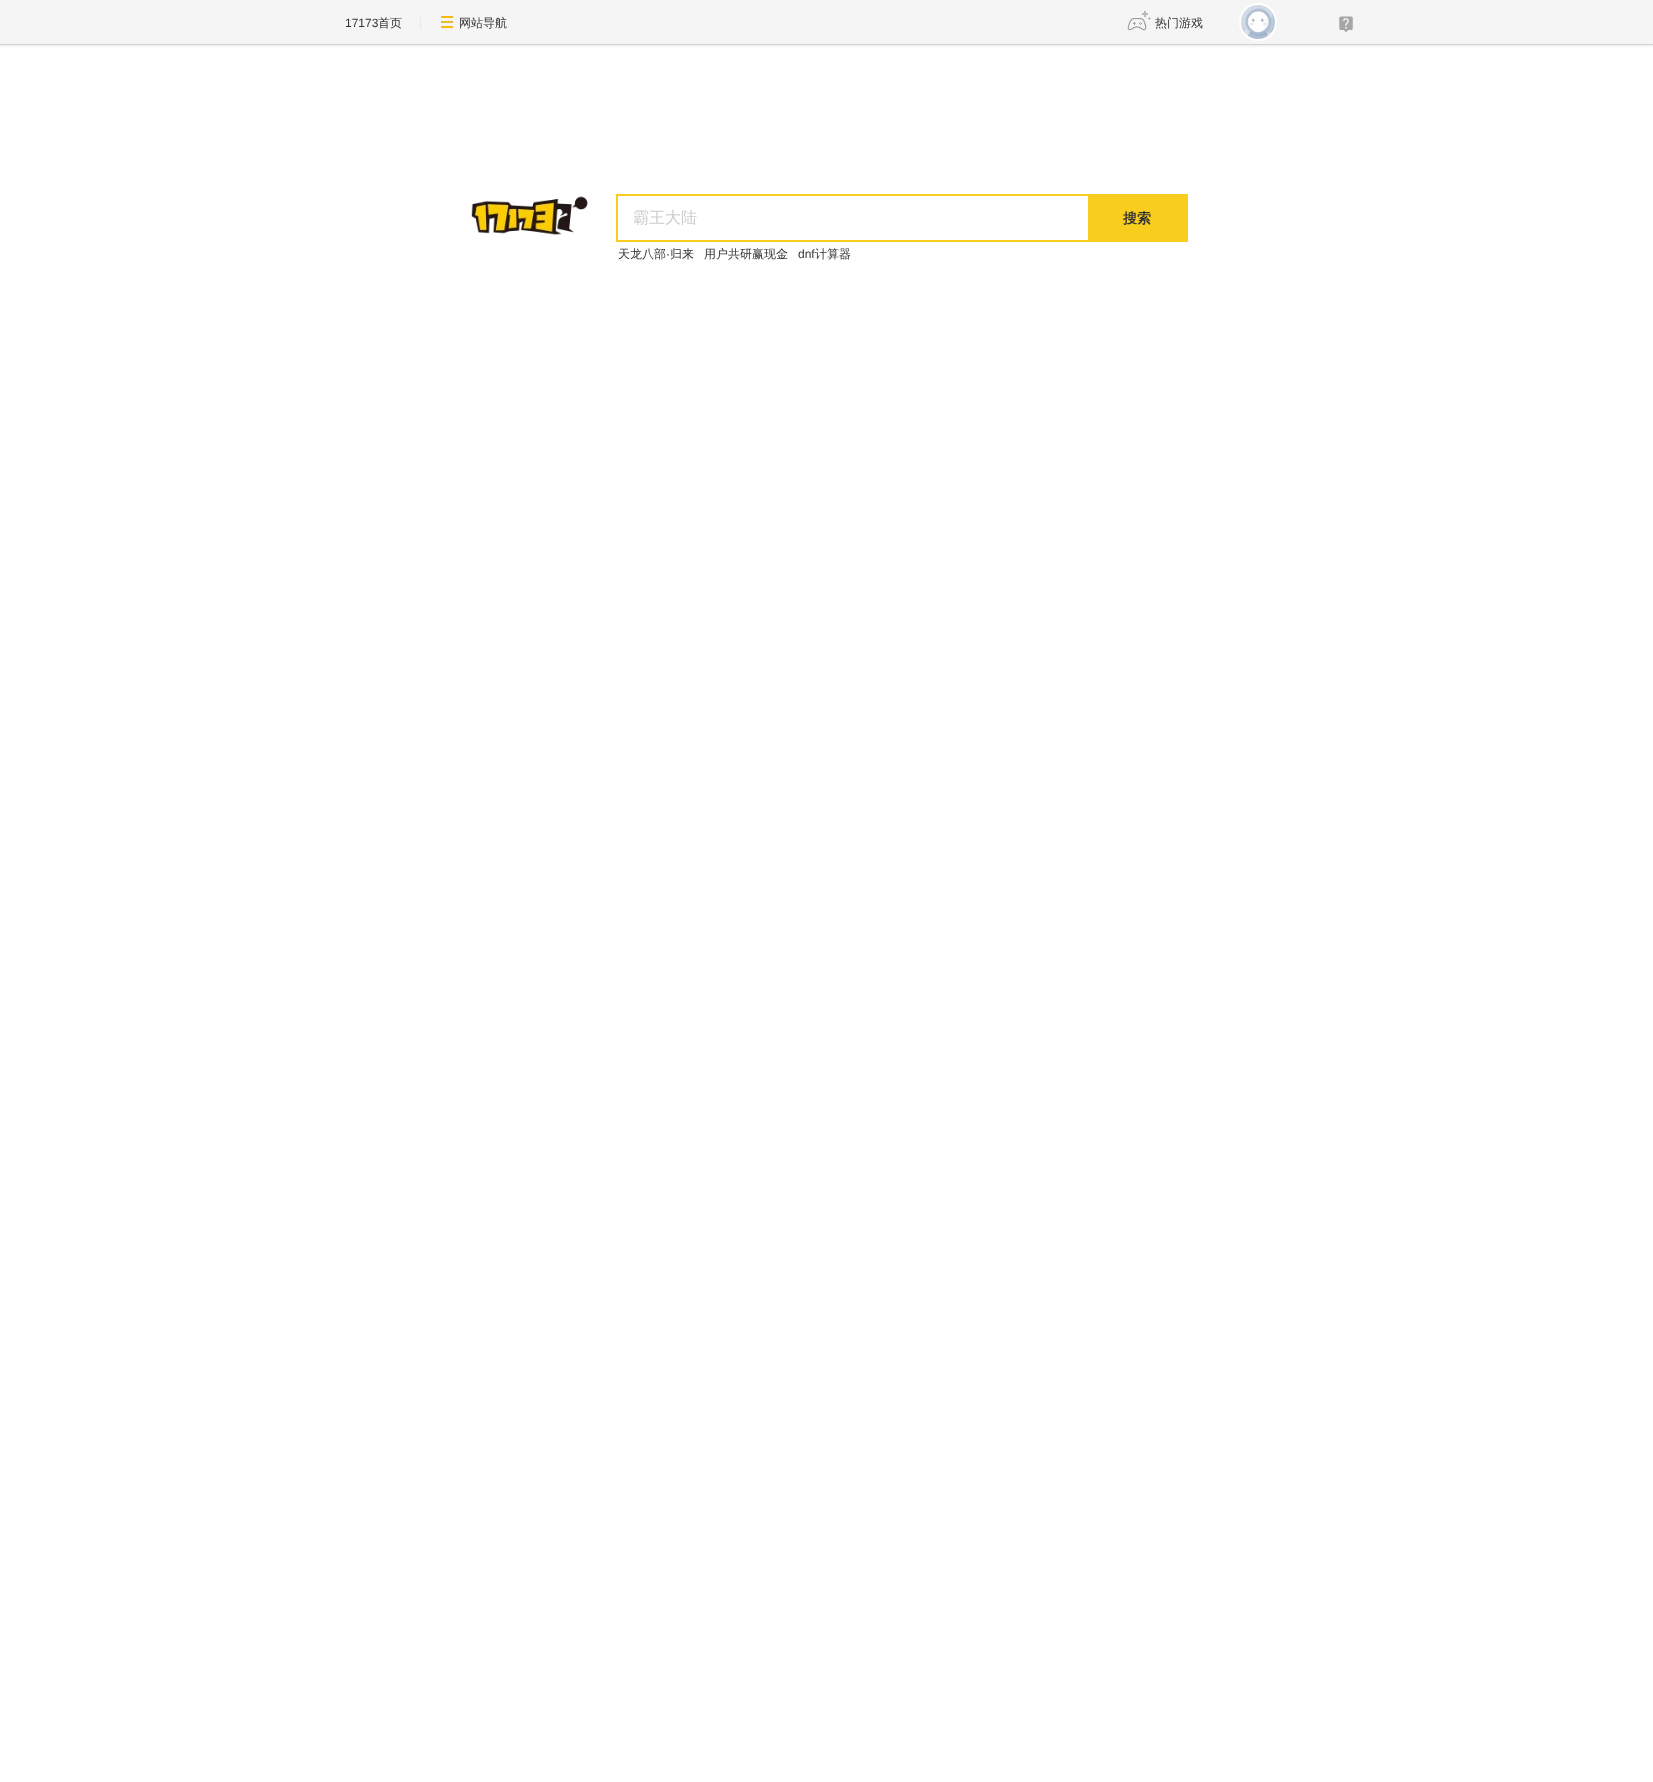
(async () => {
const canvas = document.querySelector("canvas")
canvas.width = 1653
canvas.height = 1782
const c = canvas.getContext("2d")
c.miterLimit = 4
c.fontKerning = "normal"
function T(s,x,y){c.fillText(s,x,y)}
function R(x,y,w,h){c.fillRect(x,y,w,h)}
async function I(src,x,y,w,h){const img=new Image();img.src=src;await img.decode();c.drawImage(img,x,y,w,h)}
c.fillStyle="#fff"
R(0,0,1653,1782)
c.fillStyle="#e8e6e6"
c.filter="blur(1px)"
c.beginPath()
c.rect(0,1,1653,45)
c.fill()
c.filter="none"
c.fillStyle="#f5f5f5"
R(0,0,1653,44)
c.fillStyle="#d2d2d2"
R(0,44,1653,1)
c.font="12px Liberation Sans"
c.fillStyle="#333"
T("17173",345,27)
c.font="500 12px WenQuanYi Zen Hei"
T("首页",378,27)
c.fillStyle="#e8e8e8"
R(420,17,1,12)
await I("1.png",441,16,12,12)
c.fillStyle="#333"
T("网站导航",459,27)
await I("2.png",1127,11,24,20)
T("热门游戏",1155,27)
c.beginPath()
c.arc(1258,22,18,0,7)
c.strokeStyle="#fff"
c.lineWidth=2
c.stroke()
await I("3.png",1241,5,34,34)
await I("4.png",1339,16,14,16)
await I("5.png",471,196,117,39)
c.strokeStyle="#f9cd1d"
c.strokeRect(617,195,570,46)
c.font="500 16px WenQuanYi Zen Hei"
c.fillStyle="#ccc"
T("霸王大陆",633,223)
c.fillStyle="#f9cd1d"
R(1088,196,98,44)
c.font="bold 14px WenQuanYi Zen Hei"
c.fillStyle="#333"
T("搜索",1123,223)
c.font="500 12px WenQuanYi Zen Hei"
T("天龙八部",618,258)
c.font="12px Liberation Sans"
T("·",666,258)
c.font="500 12px WenQuanYi Zen Hei"
T("归来",670,258)
T("用户共研赢现金",704,258)
c.font="12px Liberation Sans"
T("dnf",798,258)
c.font="500 12px WenQuanYi Zen Hei"
T("计算器",815,258)
})()
